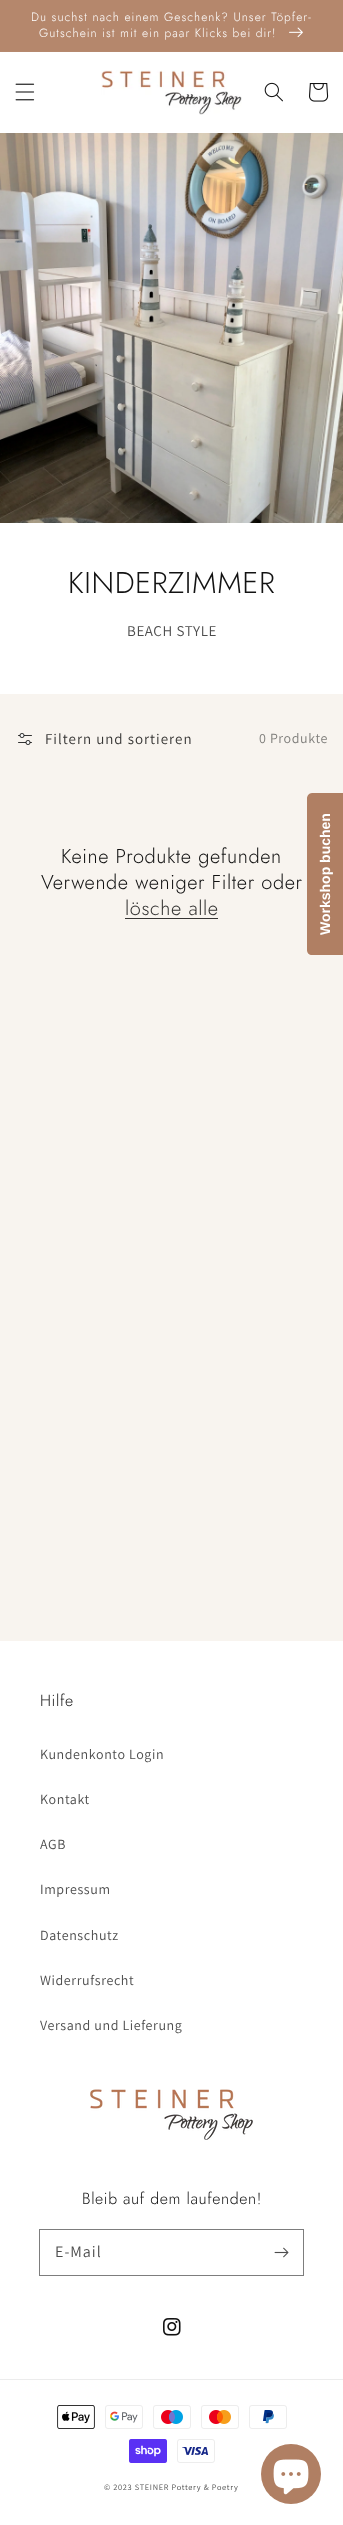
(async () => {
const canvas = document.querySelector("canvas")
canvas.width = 343
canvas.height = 2525
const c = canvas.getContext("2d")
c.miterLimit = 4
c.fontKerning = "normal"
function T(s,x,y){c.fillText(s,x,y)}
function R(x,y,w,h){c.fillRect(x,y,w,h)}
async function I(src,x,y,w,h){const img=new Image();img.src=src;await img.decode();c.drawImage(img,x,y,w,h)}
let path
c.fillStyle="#f8f4ef"
R(0,0,343,2525)
c.fillStyle="#b6896f"
R(0,51,343,1)
c.fillStyle="#b5876c"
R(0,0,343,51)
c.letterSpacing="1px"
c.font="300 12px Jost"
c.fillStyle="#fff"
T("Du suchst nach einem Geschenk? Unser Töpfer-",31,21)
T("Gutschein ist mit ein paar Klicks bei dir!",39,37)
await I("1.png",289,27,14,11)
R(0,52,343,81)
await I("2.png",15,83,20,18)
await I("3.png",101,70,141,45)
await I("4.png",264,82,19,20)
await I("5.png",309,83,20,19)
await I("6.png",0,133,343,390)
R(0,523,343,171)
c.letterSpacing="0.6px"
c.font="300 30px Jost"
c.fillStyle="#121212"
T("KINDERZIMMER",68,593)
c.font="200 15px Assistant"
c.fillStyle="#4d4d4d"
T("BEACH STYLE",127,636)
await I("7.png",18,733,14,12)
c.letterSpacing="1px"
c.fillStyle="#353433"
T("Filtern und sortieren",45,744)
c.letterSpacing="0.6px"
c.font="200 14px Assistant"
c.fillStyle="#7f7e7b"
T("0 Produkte",259,743)
c.font="300 20px Jost"
c.fillStyle="#121212"
T("Keine Produkte gefunden",61,863)
T("Verwende weniger Filter oder",41,889)
c.fillStyle="#353433"
T("lösche alle",125,915)
R(125,918,93,1)
c.fillStyle="#b07f63"
path = new Path2D("M307 950v-152c0-2 2-5 5-5h31v162h-31c-3 0-5-2-5-5z")
c.fill(path)
c.letterSpacing="0px"
c.font="bold 14px Liberation Sans"
c.fillStyle="#fff"
c.save()
c.translate(330,935)
c.rotate(-90 * Math.PI / 180)
c.fillText("Workshop buchen",0,0)
c.restore()
R(0,1641,343,884)
c.letterSpacing="0.6px"
c.font="300 16px Jost"
c.fillStyle="#121212"
T("Hilfe",40,1706)
c.font="200 14px Assistant"
c.fillStyle="#4d4d4d"
T("Kundenkonto Login",40,1759)
T("Kontakt",40,1804)
T("AGB",40,1849)
T("Impressum",40,1894)
T("Datenschutz",40,1940)
T("Widerrufsrecht",40,1985)
T("Versand und Lieferung",40,2030)
await I("8.png",90,2089,163,51)
c.font="300 16px Jost"
c.fillStyle="#121212"
T("Bleib auf dem laufenden!",82,2204)
c.strokeStyle="#7d7d7d"
c.strokeRect(39.5,2229.5,264,46)
c.letterSpacing="1px"
c.font="200 16px Assistant"
c.fillStyle="#4d4d4d"
T("E-Mail",55,2257)
await I("9.png",274,2247,15,11)
await I("10.png",163,2318,18,18)
c.fillStyle="#ececec"
R(0,2379,343,1)
await I("11.png",57,2405,38,24)
await I("12.png",105,2405,38,24)
await I("13.png",153,2405,38,24)
await I("14.png",201,2405,38,24)
await I("15.png",249,2405,38,24)
await I("16.png",129,2439,38,24)
await I("17.png",177,2439,38,24)
c.letterSpacing="0.7px"
c.font="200 8.3px Assistant"
c.fillStyle="#4d4d4d"
T("© 2023 STEINER Pottery & Poetry",104,2490)
c.fillStyle="#b07f63"
c.beginPath()
c.arc(291,2474,30,0,7)
c.fill()
await I("18.png",273,2459,36,36)
})()
